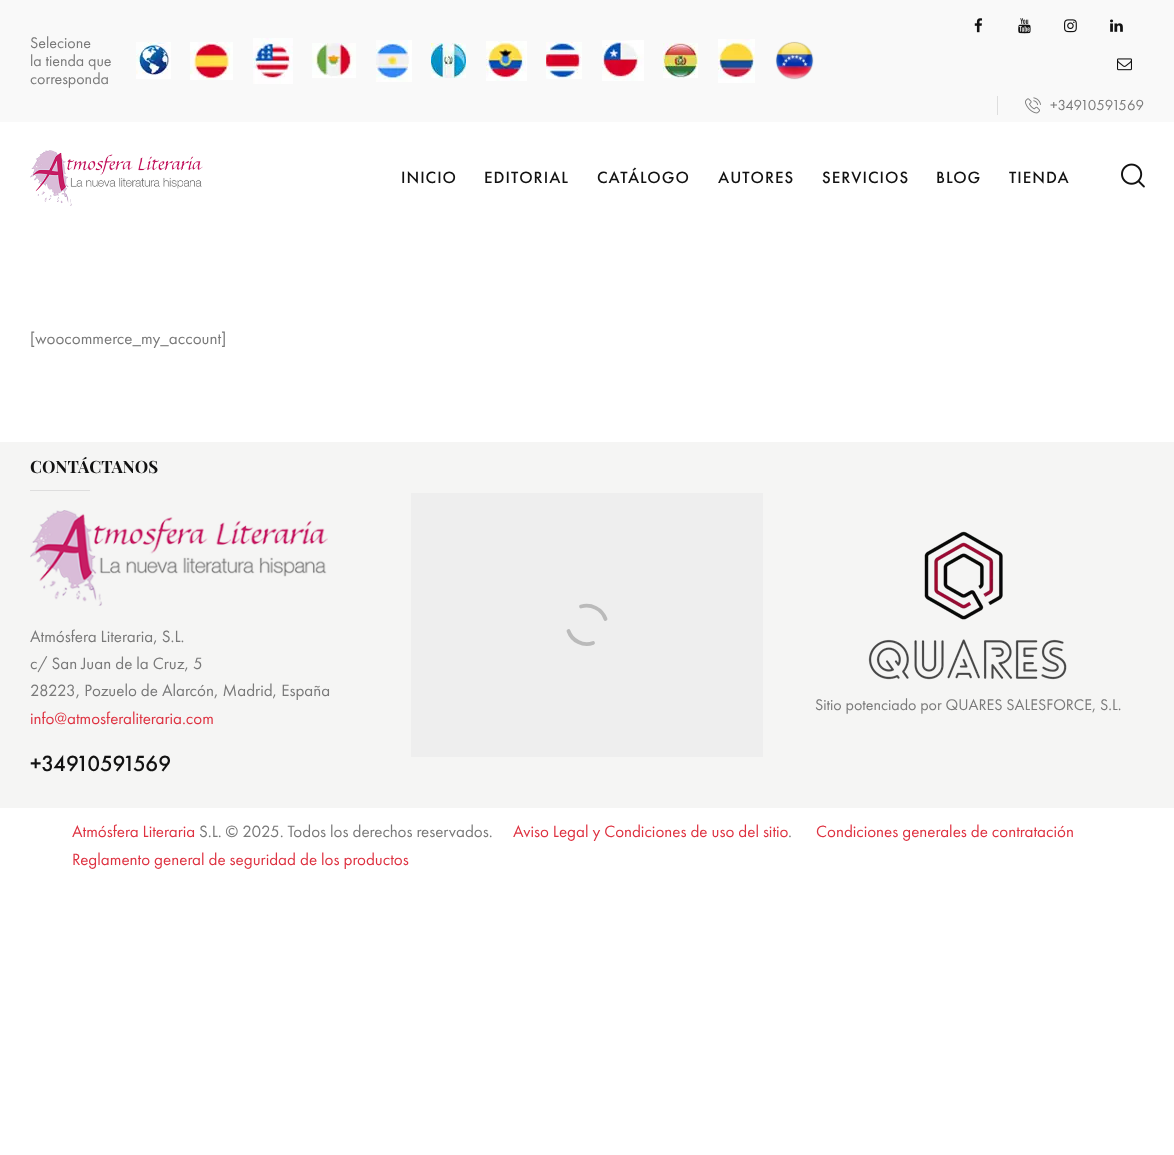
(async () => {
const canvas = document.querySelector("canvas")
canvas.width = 1174
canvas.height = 1155
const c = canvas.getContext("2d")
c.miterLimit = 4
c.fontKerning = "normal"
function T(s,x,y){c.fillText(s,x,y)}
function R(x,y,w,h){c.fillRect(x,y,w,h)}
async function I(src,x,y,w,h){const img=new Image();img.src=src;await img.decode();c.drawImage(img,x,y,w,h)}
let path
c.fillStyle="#fff"
R(0,0,1174,1155)
c.fillStyle="#f9f9f9"
R(0,0,1174,122)
c.font="16px Futura PT"
c.fillStyle="#797979"
T("Selecione",30,48)
T("la tienda que",30,66)
T("corresponda",30,84)
await I("1.png",136,42,35,37)
await I("2.png",190,42,43,38)
await I("3.png",253,38,40,46)
await I("4.png",312,43,44,35)
await I("5.png",376,40,36,42)
await I("6.png",431,43,35,35)
await I("7.png",486,41,41,40)
await I("8.png",546,42,36,37)
await I("9.png",602,40,42,41)
await I("10.png",663,43,35,35)
await I("11.png",718,39,37,44)
await I("12.png",775,41,39,39)
await I("13.png",974,18,9,15)
await I("14.png",1018,18,13,16)
await I("15.png",1064,19,13,14)
await I("16.png",1110,19,13,13)
await I("17.png",1117,58,15,13)
c.fillStyle="#dedede"
R(997,96,1,19)
await I("18.png",1025,97,16,17)
c.font="15px Futura PT"
c.fillStyle="#797979"
T("+34910591569",1050,110)
await I("19.png",30,150,173,56)
c.letterSpacing="1px"
c.font="500 17px Futura PT"
c.fillStyle="#121212"
T("INICIO",401,183)
T("EDITORIAL",484,183)
T("CATÁLOGO",597,183)
T("AUTORES",718,183)
T("SERVICIOS",822,183)
T("BLOG",936,183)
T("TIENDA",1009,183)
await I("20.png",1121,163,24,25)
c.letterSpacing="0px"
c.font="17px Futura PT"
c.fillStyle="#797979"
T("[woocommerce_my_account]",30,344)
c.fillStyle="#f5f5f4"
R(0,442,1174,366)
c.font="bold 17px Playfair Display"
c.fillStyle="#121212"
T("CONTÁCTANOS",30,473)
c.fillStyle="#dedede"
R(30,490,60,1)
await I("21.png",30,510,298,96)
c.font="17px Futura PT"
c.fillStyle="#797979"
T("Atmósfera Literaria, S.L.",30,642)
T("c/ San Juan de la Cruz, 5",30,669)
T("28223, Pozuelo de Alarcón, Madrid, España",30,696)
c.fillStyle="#de3241"
T("info@atmosferaliteraria.com",30,724)
c.font="500 22.75px Futura PT"
c.fillStyle="#121212"
T("+34910591569",30,771)
c.fillStyle="#eee"
R(411,493,352,264)
path = new Path2D("M593 643c-10 3.5-21-2-24.5-12m12.5-24.5c10-3 21 2.5 24.5 12.5")
c.strokeStyle="#bababa"
c.lineWidth=3.8
c.lineCap="round"
c.stroke(path)
await I("22.png",868,531,199,149)
c.font="16px Futura PT"
c.fillStyle="#797979"
T("Sitio potenciado por QUARES SALESFORCE, S.L.",815,710)
c.font="17px Futura PT"
c.fillStyle="#de3241"
T("Atmósfera Literaria",72,837)
c.fillStyle="#797979"
T("S.L. © 2025. Todos los derechos reservados.",199,837)
c.fillStyle="#de3241"
T("Aviso Legal y Condiciones de uso del sitio",513,837)
c.fillStyle="#797979"
T(".",788,837)
c.fillStyle="#de3241"
T("Condiciones generales de contratación",816,837)
T("Reglamento general de seguridad de los productos",72,865)
})()
